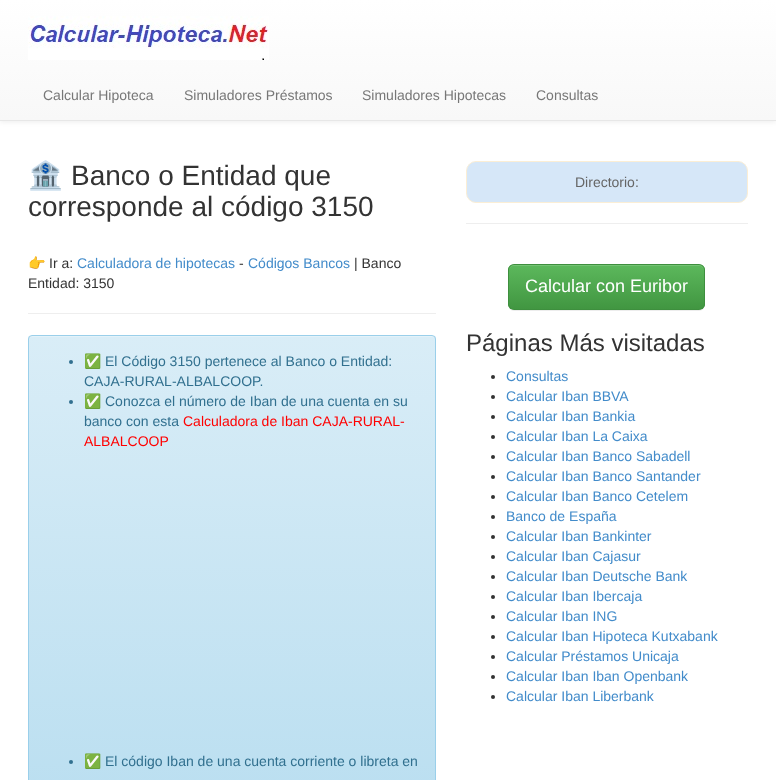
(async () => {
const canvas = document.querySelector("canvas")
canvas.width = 776
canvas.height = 780
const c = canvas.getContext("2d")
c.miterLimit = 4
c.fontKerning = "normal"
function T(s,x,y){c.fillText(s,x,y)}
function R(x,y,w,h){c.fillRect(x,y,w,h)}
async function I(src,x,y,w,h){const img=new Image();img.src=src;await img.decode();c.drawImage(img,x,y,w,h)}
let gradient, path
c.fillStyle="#fff"
R(0,0,776,780)
c.fillStyle="#00000012"
c.filter="blur(2.5px)"
c.beginPath()
c.rect(0,1,776,121)
c.fill()
c.filter="none"
gradient = c.createLinearGradient(388,0,388,120)
gradient.addColorStop(0,"#fff")
gradient.addColorStop(1,"#f8f8f8")
c.fillStyle = gradient
R(0,0,776,120)
c.fillStyle="#e7e7e7"
R(0,120,776,1)
await I("1.png",28,16,241,44)
c.font="14px Liberation Sans"
c.fillStyle="#777"
T("Calcular Hipoteca",43,100)
T("Simuladores Préstamos",184,100)
T("Simuladores Hipotecas",362,100)
T("Consultas",536,100)
c.font="28px Noto Color Emoji"
c.fillStyle="#333"
T("🏦",28,185)
c.font="28px Liberation Sans"
T("Banco o Entidad que",71,185)
T("corresponde al código 3150",28,216)
c.font="14px Noto Color Emoji"
T("👉",28,268)
c.font="14px Liberation Sans"
T("Ir a:",49,268)
c.fillStyle="#428bca"
T("Calculadora de hipotecas",77,268)
c.fillStyle="#333"
T("-",239,268)
c.fillStyle="#428bca"
T("Códigos Bancos",248,268)
c.fillStyle="#333"
T("| Banco",354,268)
T("Entidad: 3150",28,288)
c.fillStyle="#eee"
R(28,313,408,1)
c.save()
c.beginPath()
c.roundRect(28,335,408,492,4)
c.clip()
gradient = c.createLinearGradient(232,336,232,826)
gradient.addColorStop(0,"#d9edf7")
gradient.addColorStop(1,"#b9def0")
c.fillStyle = gradient
R(28,336,408,444)
c.restore()
c.fillStyle="#e3f2f9"
path = new Path2D("M32 337h400c2 0 3 1 3 3c0-2-1-4-3-4h-400c-2 0-3 2-3 4c0-2 1-3 3-3z")
c.fill(path)
c.beginPath()
c.roundRect(28.5,335.5,407,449,3.5)
c.strokeStyle="#9acfea"
c.stroke()
c.fillStyle="#31708f"
c.beginPath()
c.arc(71,362,2,0,7)
c.fill()
c.font="14px Noto Color Emoji"
T("✅",84,366)
c.font="14px Liberation Sans"
T("El Código 3150 pertenece al Banco o Entidad:",105,366)
T("CAJA-RURAL-ALBALCOOP.",84,386)
c.beginPath()
c.arc(71,402,2,0,7)
c.fill()
c.font="14px Noto Color Emoji"
T("✅",84,406)
c.font="14px Liberation Sans"
T("Conozca el número de Iban de una cuenta en su",105,406)
T("banco con esta",84,426)
c.fillStyle="#f00"
T("Calculadora de Iban CAJA-RURAL-",183,426)
T("ALBALCOOP",84,446)
c.fillStyle="#31708f"
c.beginPath()
c.arc(71,762,2,0,7)
c.fill()
c.font="14px Noto Color Emoji"
T("✅",84,766)
c.font="14px Liberation Sans"
T("El código Iban de una cuenta corriente o libreta en",105,766)
c.fillStyle="#d6e7f8"
c.beginPath()
c.roundRect(466.5,161.5,281,41,9.5)
c.fill()
c.strokeStyle="#fbeed5"
c.stroke()
c.fillStyle="#666"
T("Directorio:",575,187)
c.fillStyle="#eee"
R(466,223,282,1)
c.fillStyle="#00000012"
c.filter="blur(0.5px)"
c.beginPath()
c.roundRect(508,265,197,46,6)
c.fill()
c.filter="none"
c.save()
c.beginPath()
c.roundRect(508,264,197,46,6)
c.clip()
gradient = c.createLinearGradient(607,265,607,309)
gradient.addColorStop(0,"#5cb85c")
gradient.addColorStop(1,"#419641")
c.fillStyle = gradient
R(508,265,197,44)
c.restore()
c.fillStyle="#74c374"
path = new Path2D("M514 266h185c3 0 5 2 5 5v-1c0-3-2-5-5-5h-185c-3 0-5 2-5 5v1c0-3 2-5 5-5z")
c.fill(path)
c.beginPath()
c.roundRect(508.5,264.5,196,45,5.5)
c.strokeStyle="#3e8f3e"
c.stroke()
c.font="18px Liberation Sans"
c.fillStyle="#fff"
T("Calcular con Euribor",525,292)
c.font="24px Liberation Sans"
c.fillStyle="#333"
T("Páginas Más visitadas",466,351)
c.beginPath()
c.arc(493,377,2,0,7)
c.fill()
c.font="14px Liberation Sans"
c.fillStyle="#428bca"
T("Consultas",506,381)
c.fillStyle="#333"
c.beginPath()
c.arc(493,397,2,0,7)
c.fill()
c.fillStyle="#428bca"
T("Calcular Iban BBVA",506,401)
c.fillStyle="#333"
c.beginPath()
c.arc(493,417,2,0,7)
c.fill()
c.fillStyle="#428bca"
T("Calcular Iban Bankia",506,421)
c.fillStyle="#333"
c.beginPath()
c.arc(493,437,2,0,7)
c.fill()
c.fillStyle="#428bca"
T("Calcular Iban La Caixa",506,441)
c.fillStyle="#333"
c.beginPath()
c.arc(493,457,2,0,7)
c.fill()
c.fillStyle="#428bca"
T("Calcular Iban Banco Sabadell",506,461)
c.fillStyle="#333"
c.beginPath()
c.arc(493,477,2,0,7)
c.fill()
c.fillStyle="#428bca"
T("Calcular Iban Banco Santander",506,481)
c.fillStyle="#333"
c.beginPath()
c.arc(493,497,2,0,7)
c.fill()
c.fillStyle="#428bca"
T("Calcular Iban Banco Cetelem",506,501)
c.fillStyle="#333"
c.beginPath()
c.arc(493,517,2,0,7)
c.fill()
c.fillStyle="#428bca"
T("Banco de España",506,521)
c.fillStyle="#333"
c.beginPath()
c.arc(493,537,2,0,7)
c.fill()
c.fillStyle="#428bca"
T("Calcular Iban Bankinter",506,541)
c.fillStyle="#333"
c.beginPath()
c.arc(493,557,2,0,7)
c.fill()
c.fillStyle="#428bca"
T("Calcular Iban Cajasur",506,561)
c.fillStyle="#333"
c.beginPath()
c.arc(493,577,2,0,7)
c.fill()
c.fillStyle="#428bca"
T("Calcular Iban Deutsche Bank",506,581)
c.fillStyle="#333"
c.beginPath()
c.arc(493,597,2,0,7)
c.fill()
c.fillStyle="#428bca"
T("Calcular Iban Ibercaja",506,601)
c.fillStyle="#333"
c.beginPath()
c.arc(493,617,2,0,7)
c.fill()
c.fillStyle="#428bca"
T("Calcular Iban ING",506,621)
c.fillStyle="#333"
c.beginPath()
c.arc(493,637,2,0,7)
c.fill()
c.fillStyle="#428bca"
T("Calcular Iban Hipoteca Kutxabank",506,641)
c.fillStyle="#333"
c.beginPath()
c.arc(493,657,2,0,7)
c.fill()
c.fillStyle="#428bca"
T("Calcular Préstamos Unicaja",506,661)
c.fillStyle="#333"
c.beginPath()
c.arc(493,677,2,0,7)
c.fill()
c.fillStyle="#428bca"
T("Calcular Iban Iban Openbank",506,681)
c.fillStyle="#333"
c.beginPath()
c.arc(493,697,2,0,7)
c.fill()
c.fillStyle="#428bca"
T("Calcular Iban Liberbank",506,701)
})()
